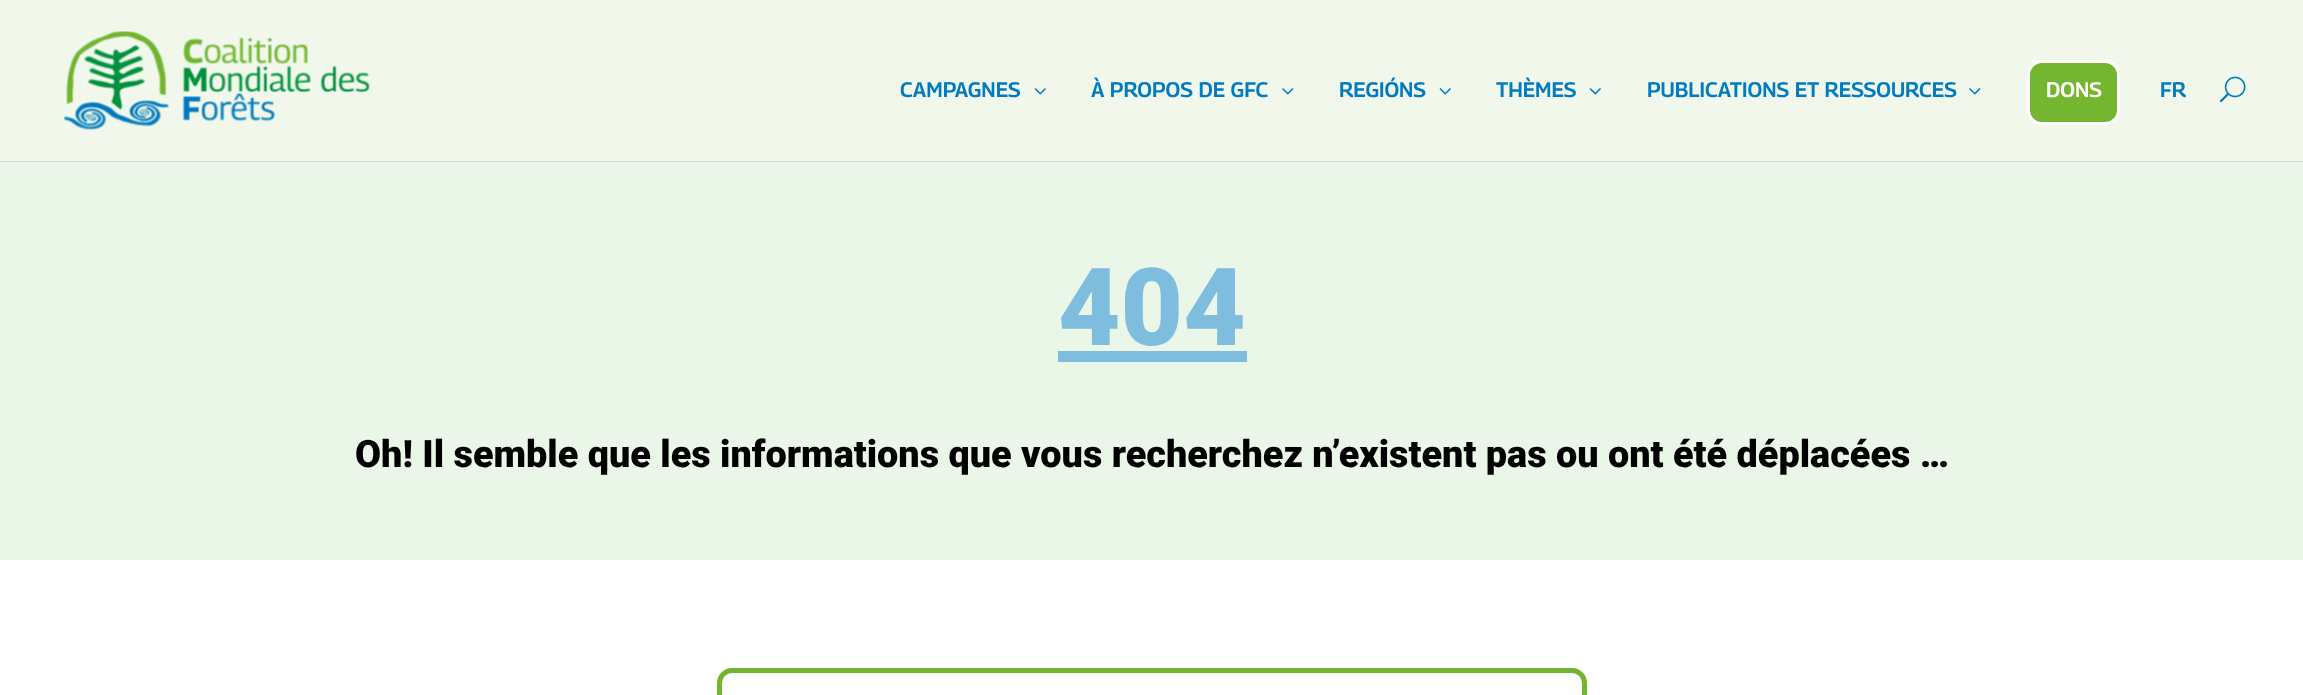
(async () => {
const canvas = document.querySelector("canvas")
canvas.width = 2303
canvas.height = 695
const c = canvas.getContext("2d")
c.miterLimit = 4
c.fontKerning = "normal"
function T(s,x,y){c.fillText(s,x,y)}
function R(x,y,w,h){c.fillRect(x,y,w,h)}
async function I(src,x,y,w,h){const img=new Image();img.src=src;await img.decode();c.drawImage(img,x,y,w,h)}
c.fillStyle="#fff"
R(0,0,2303,695)
c.fillStyle="#d3ddd1"
R(0,161,2303,1)
c.fillStyle="#f1f8eb"
R(0,0,2303,161)
await I("1.png",64,31,306,99)
c.font="100 21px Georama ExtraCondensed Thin"
c.fillStyle="#007bc0"
T("CAMPAGNES",900,97)
await I("2.png",1034,88,12,7)
T("À PROPOS DE GFC",1091,97)
await I("3.png",1282,88,12,7)
T("REGIÓNS",1339,97)
await I("2.png",1439,88,12,7)
T("THÈMES",1496,97)
await I("2.png",1589,88,12,7)
T("PUBLICATIONS ET RESSOURCES",1647,97)
await I("3.png",1969,88,12,7)
c.fillStyle="#74b62f"
c.beginPath()
c.roundRect(2028.5,61.5,90,62,13.5)
c.fill()
c.strokeStyle="#fff"
c.lineWidth=3
c.stroke()
c.fillStyle="#fff"
T("DONS",2046,97)
c.fillStyle="#007bc0"
T("FR",2160,97)
await I("4.png",2219,76,27,27)
c.fillStyle="#eaf6e8"
R(0,162,2303,398)
c.font="900 108px Roboto"
c.fillStyle="#7fbddf"
T("404",1058,345)
R(1058,351,189,11)
c.font="900 37.8px Roboto"
c.fillStyle="#000"
T("Oh! Il semble que les informations que vous recherchez n’existent pas ou ont été déplacées …",355,467)
c.beginPath()
c.roundRect(719.5,670.5,865,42,12.5)
c.strokeStyle="#73b52f"
c.lineWidth=5
c.stroke()
})()
